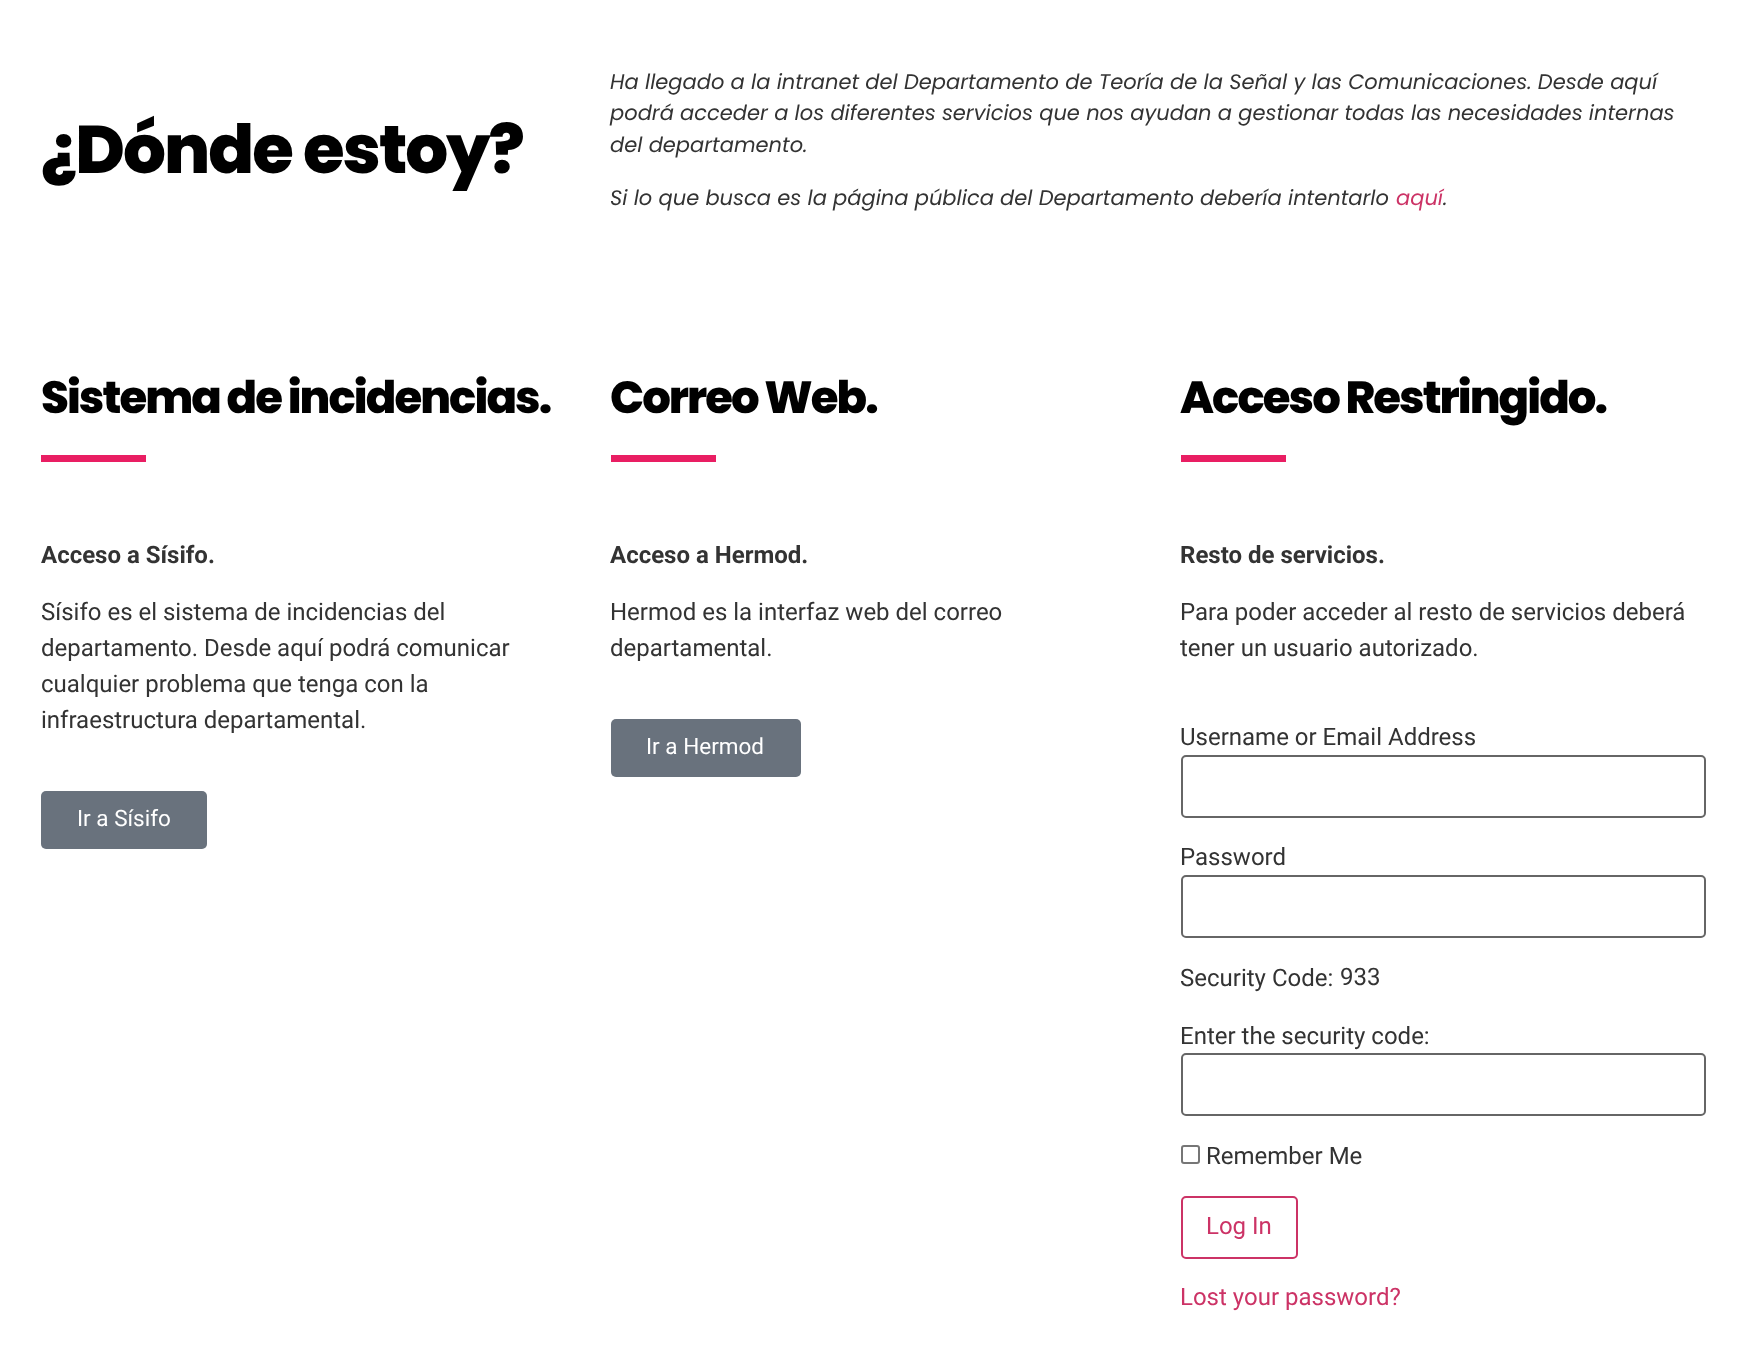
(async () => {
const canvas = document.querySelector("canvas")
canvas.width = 1745
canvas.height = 1368
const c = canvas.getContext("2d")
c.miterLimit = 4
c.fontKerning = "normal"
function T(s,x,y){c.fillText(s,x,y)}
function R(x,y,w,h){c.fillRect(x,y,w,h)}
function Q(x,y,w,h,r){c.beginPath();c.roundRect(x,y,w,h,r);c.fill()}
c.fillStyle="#fff"
R(0,0,1745,1368)
c.letterSpacing="-1.95px"
c.font="800 67.5px Poppins"
c.fillStyle="#000"
T("¿Dónde estoy?",41,173)
c.letterSpacing="0px"
c.font="italic 21px Poppins"
c.fillStyle="#333"
T("Ha llegado a la intranet del Departamento de Teoría de la Señal y las Comunicaciones. Desde aquí",610,89)
T("podrá acceder a los diferentes servicios que nos ayudan a gestionar todas las necesidades internas",610,120)
T("del departamento.",610,152)
T("Si lo que busca es la página pública del Departamento debería intentarlo",610,205)
c.fillStyle="#c36"
T("aquí",1396,205)
c.fillStyle="#333"
T(".",1443,205)
c.letterSpacing="-1.95px"
c.font="800 45px Poppins"
c.fillStyle="#000"
T("Sistema de incidencias.",41,413)
c.fillStyle="#e91e63"
R(41,455,105,7)
c.letterSpacing="0px"
c.font="bold 24px Roboto"
c.fillStyle="#333"
T("Acceso a Sísifo.",41,563)
c.font="24px Roboto"
T("Sísifo es el sistema de incidencias del",41,620)
T("departamento. Desde aquí podrá comunicar",41,656)
T("cualquier problema que tenga con la",41,692)
T("infraestructura departamental.",41,728)
c.fillStyle="#69727d"
Q(41,791,166,58,5)
c.font="22.5px Roboto"
c.fillStyle="#fff"
T("Ir a Sísifo",77,826)
c.letterSpacing="-1.95px"
c.font="800 45px Poppins"
c.fillStyle="#000"
T("Correo Web.",610,413)
c.fillStyle="#e91e63"
R(611,455,105,7)
c.letterSpacing="0px"
c.font="bold 24px Roboto"
c.fillStyle="#333"
T("Acceso a Hermod.",610,563)
c.font="24px Roboto"
T("Hermod es la interfaz web del correo",610,620)
T("departamental.",610,656)
c.fillStyle="#69727d"
Q(611,719,190,58,5)
c.font="22.5px Roboto"
c.fillStyle="#fff"
T("Ir a Hermod",646,754)
c.letterSpacing="-1.95px"
c.font="800 45px Poppins"
c.fillStyle="#000"
T("Acceso Restringido.",1180,413)
c.fillStyle="#e91e63"
R(1181,455,105,7)
c.letterSpacing="0px"
c.font="bold 24px Roboto"
c.fillStyle="#333"
T("Resto de servicios.",1180,563)
c.font="24px Roboto"
T("Para poder acceder al resto de servicios deberá",1180,620)
T("tener un usuario autorizado.",1180,656)
T("Username or Email Address",1180,745)
c.beginPath()
c.roundRect(1182,756,523,61,4)
c.strokeStyle="#666"
c.lineWidth=2
c.stroke()
T("Password",1180,865)
c.beginPath()
c.roundRect(1182,876,523,61,4)
c.stroke()
T("Security Code:",1180,986)
T("933",1340,985)
T("Enter the security code:",1180,1044)
c.beginPath()
c.roundRect(1182,1054,523,61,4)
c.stroke()
c.beginPath()
c.roundRect(1182,1146,17,17,2)
c.strokeStyle="#767676"
c.stroke()
T("Remember Me",1206,1164)
c.beginPath()
c.roundRect(1182,1197,115,61,4)
c.strokeStyle="#c36"
c.stroke()
c.fillStyle="#c36"
T("Log In",1206,1234)
T("Lost your password?",1180,1305)
})()
